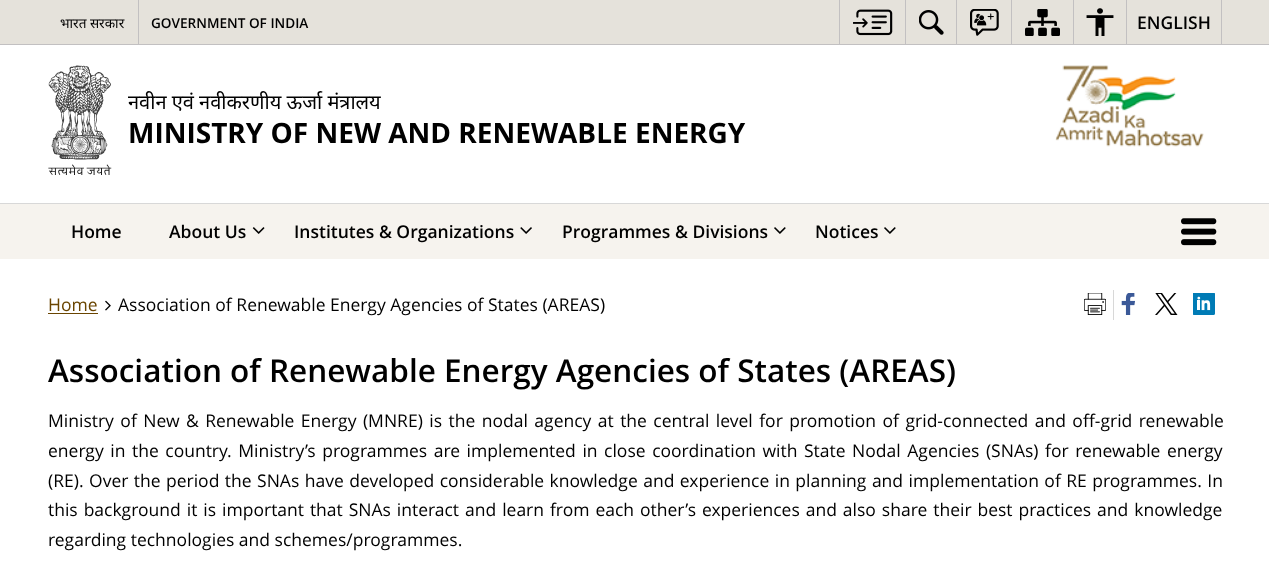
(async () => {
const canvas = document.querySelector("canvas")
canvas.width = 1269
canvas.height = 563
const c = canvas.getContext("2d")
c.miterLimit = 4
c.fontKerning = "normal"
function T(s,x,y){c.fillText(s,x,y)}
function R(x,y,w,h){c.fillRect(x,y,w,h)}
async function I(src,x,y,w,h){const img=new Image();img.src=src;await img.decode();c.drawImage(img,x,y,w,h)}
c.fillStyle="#fff"
R(0,0,1269,563)
c.fillStyle="#e5e2db"
R(0,0,1269,44)
c.fillStyle="#c2c0c1"
R(0,44,1269,1)
R(138,0,1,44)
c.font="13.6px Noto Sans"
c.fillStyle="#000"
T("भारत सरकार",60,28)
c.font="600 13.6px Open Sans"
T("GOVERNMENT OF INDIA",151,28)
c.fillStyle="#c2c0c1"
R(839,0,1,44)
await I("1.png",853,9,40,27)
R(905,0,1,44)
await I("2.png",919,10,25,25)
R(956,0,1,44)
await I("3.png",970,9,29,27)
R(1011,0,1,44)
await I("4.png",1025,9,35,27)
R(1073,0,1,44)
await I("5.png",1086,8,28,28)
R(1221,0,1,44)
R(1126,0,1,44)
c.font="600 17.5px Open Sans"
c.fillStyle="#000"
T("ENGLISH",1137,29)
await I("6.png",48,65,64,110)
c.font="20px Noto Sans"
T("नवीन एवं नवीकरणीय ऊर्जा मंत्रालय",128,109)
c.font="bold 28px Open Sans"
T("MINISTRY OF NEW AND RENEWABLE ENERGY",128,143)
await I("7.png",1055,65,149,82)
c.fillStyle="#f6f3ee"
R(0,204,1269,55)
c.fillStyle="#d8d8d8"
R(0,203,1269,1)
c.font="600 17.5px Open Sans"
c.fillStyle="#000"
T("Home",71,238)
T("About Us",169,238)
await I("8.png",252,227,13,7)
T("Institutes & Organizations",294,238)
await I("9.png",520,227,12,7)
T("Programmes & Divisions",562,238)
await I("10.png",774,227,12,7)
T("Notices",815,238)
await I("10.png",884,227,12,7)
await I("11.png",1181,218,36,28)
c.font="17.5px Open Sans"
c.fillStyle="#6a4501"
T("Home",48,311)
R(48,313,50,1)
await I("12.png",105,300,6,11)
c.fillStyle="#000"
T("Association of Renewable Energy Agencies of States (AREAS)",118,311)
c.fillStyle="#d8d8d8"
R(1113,290,1,30)
await I("13.png",1084,293,22,22)
await I("14.png",1121,293,14,22)
await I("15.png",1155,293,23,22)
await I("16.png",1193,293,22,22)
c.font="600 31.5px Open Sans"
c.fillStyle="#000"
T("Association of Renewable Energy Agencies of States (AREAS)",48,382)
c.wordSpacing="1.9px"
c.font="17.5px Open Sans"
T("Ministry of New & Renewable Energy (MNRE) is the nodal agency at the central level for promotion of grid-connected and off-grid renewable",48,427)
c.wordSpacing="2px"
T("energy in the country. Ministry’s programmes are implemented in close coordination with State Nodal Agencies (SNAs) for renewable energy",48,457)
c.wordSpacing="0.9px"
T("(RE). Over the period the SNAs have developed considerable knowledge and experience in planning and implementation of RE programmes. In",48,487)
c.wordSpacing="1.4px"
T("this background it is important that SNAs interact and learn from each other’s experiences and also share their best practices and knowledge",48,516)
c.wordSpacing="0px"
T("regarding technologies and schemes/programmes.",48,546)
})()
